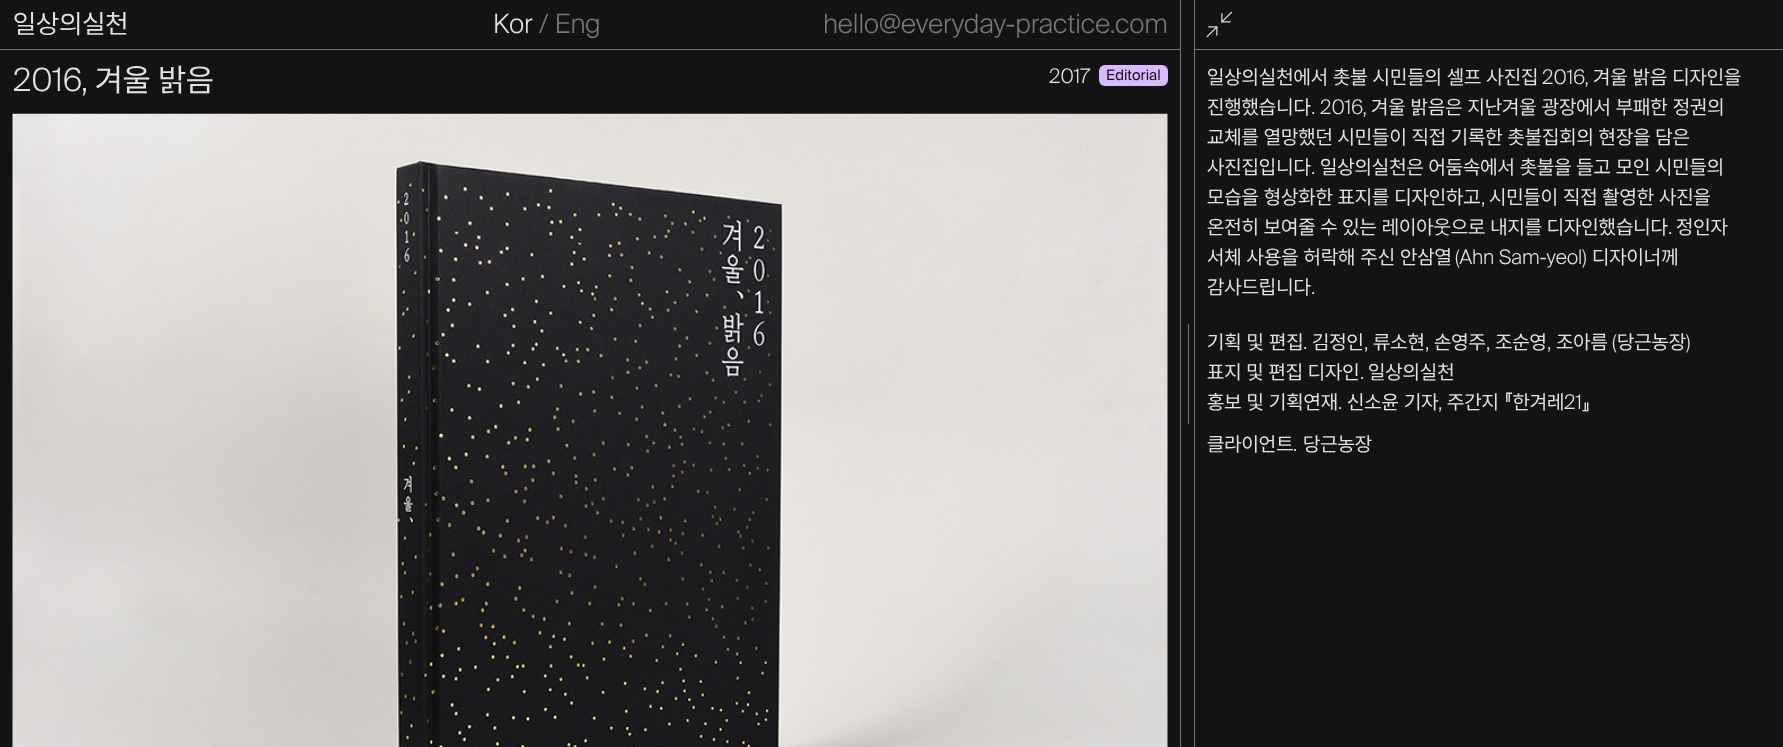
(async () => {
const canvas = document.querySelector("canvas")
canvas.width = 1783
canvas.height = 747
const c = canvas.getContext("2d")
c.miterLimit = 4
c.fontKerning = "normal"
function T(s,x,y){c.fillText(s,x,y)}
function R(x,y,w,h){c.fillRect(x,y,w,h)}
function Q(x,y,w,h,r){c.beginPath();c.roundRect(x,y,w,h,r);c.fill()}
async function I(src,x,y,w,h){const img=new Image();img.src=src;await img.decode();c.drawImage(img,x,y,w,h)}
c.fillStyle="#131313"
R(0,0,1783,747)
c.fillStyle="#787878"
R(1180,0,1,747)
R(0,49,1180,1)
c.font="26.7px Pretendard"
c.fillStyle="#e2e2e2"
T("일상의실천",13,33)
c.font="300 26.7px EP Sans"
T("Kor",493,33)
c.fillStyle="#787878"
T("/ Eng",539,33)
T("hello@everyday-practice.com",823,33)
c.font="300 32px EP Sans"
c.fillStyle="#e2e2e2"
T("2016,",13,91)
c.font="32px Pretendard"
T("겨울 밝음",95,91)
c.font="300 20px EP Sans"
T("2017",1049,83)
c.fillStyle="#d8baff"
Q(1099,65,69,21,6)
c.font="14.5px EP Sans"
c.fillStyle="#131313"
T("Editorial",1106,80)
await I("1.png",12,113,1156,634)
c.fillStyle="#787878"
R(1188,324,1,100)
R(1194,0,1,747)
R(1195,49,588,1)
await I("2.png",1206,11,27,27)
c.font="20px Pretendard"
c.fillStyle="#e2e2e2"
T("일상의실천에서 촛불 시민들의 셀프 사진집",1207,84)
c.font="300 20px EP Sans"
T("2016,",1542,84)
c.font="20px Pretendard"
T("겨울 밝음 디자인을",1593,84)
T("진행했습니다",1207,114)
c.font="300 20px EP Sans"
T(". 2016,",1311,114)
c.font="20px Pretendard"
T("겨울 밝음은 지난겨울 광장에서 부패한 정권의",1371,114)
c.wordSpacing="-0.25px"
T("교체를 열망했던 시민들이 직접 기록한 촛불집회의 현장을 담은",1207,144)
c.wordSpacing="0px"
T("사진집입니다",1207,174)
c.font="300 20px EP Sans"
T(".",1311,174)
c.wordSpacing="-0.25px"
c.font="20px Pretendard"
T("일상의실천은 어둠속에서 촛불을 들고 모인 시민들의",1320,174)
T("모습을 형상화한 표지를 디자인하고",1207,204)
c.wordSpacing="0px"
c.font="300 20px EP Sans"
T(",",1481,204)
c.wordSpacing="-0.25px"
c.font="20px Pretendard"
T("시민들이 직접 촬영한 사진을",1489,204)
T("온전히 보여줄 수 있는 레이아웃으로 내지를 디자인했습니다",1207,234)
c.wordSpacing="0px"
c.font="300 20px EP Sans"
T(".",1668,234)
c.font="20px Pretendard"
T("정인자",1676,234)
T("서체 사용을 허락해 주신 안삼열",1207,264)
c.font="300 20px EP Sans"
T("(Ahn Sam-yeol)",1455,264)
c.font="20px Pretendard"
T("디자이너께",1592,264)
T("감사드립니다",1207,294)
c.font="300 20px EP Sans"
T(".",1311,294)
c.font="20px Pretendard"
T("기획 및 편집",1207,349)
c.font="300 20px EP Sans"
T(".",1303,349)
c.font="20px Pretendard"
T("김정인",1312,349)
c.font="300 20px EP Sans"
T(",",1364,349)
c.font="20px Pretendard"
T("류소현",1373,349)
c.font="300 20px EP Sans"
T(",",1425,349)
c.font="20px Pretendard"
T("손영주",1434,349)
c.font="300 20px EP Sans"
T(",",1486,349)
c.font="20px Pretendard"
T("조순영",1495,349)
c.font="300 20px EP Sans"
T(",",1547,349)
c.font="20px Pretendard"
T("조아름",1556,349)
c.font="300 20px EP Sans"
T("(",1612,349)
c.font="20px Pretendard"
T("당근농장",1617,349)
c.font="300 20px EP Sans"
T(")",1686,349)
c.wordSpacing="-0.25px"
c.font="20px Pretendard"
T("표지 및 편집 디자인",1207,379)
c.wordSpacing="0px"
c.font="300 20px EP Sans"
T(".",1360,379)
c.font="20px Pretendard"
T("일상의실천",1368,379)
T("홍보 및 기획연재",1207,409)
c.font="300 20px EP Sans"
T(".",1338,409)
c.font="20px Pretendard"
T("신소윤 기자",1347,409)
c.font="300 20px EP Sans"
T(",",1438,409)
c.font="20px Pretendard"
T("주간지 『한겨레",1447,409)
c.font="300 20px EP Sans"
T("21",1564,409)
c.font="20px Pretendard"
T("』",1582,409)
T("클라이언트",1207,451)
c.font="300 20px EP Sans"
T(".",1293,451)
c.font="20px Pretendard"
T("당근농장",1303,451)
})()
